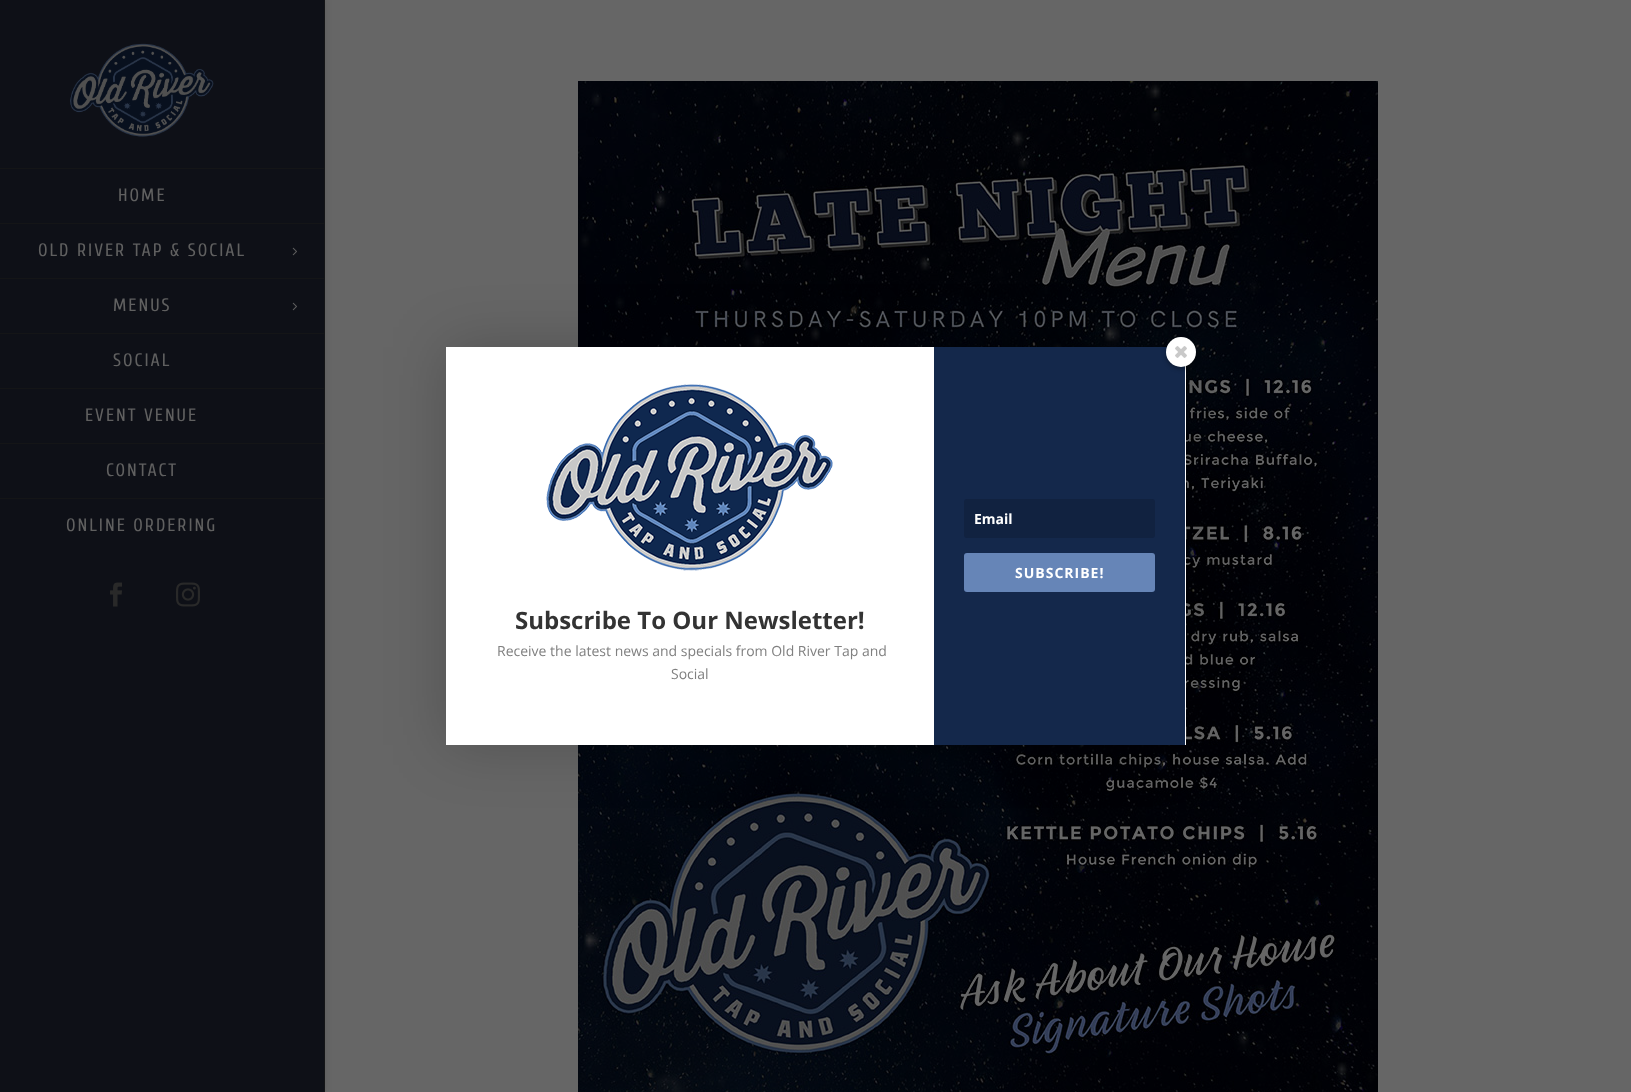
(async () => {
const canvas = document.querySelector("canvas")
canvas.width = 1631
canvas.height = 1092
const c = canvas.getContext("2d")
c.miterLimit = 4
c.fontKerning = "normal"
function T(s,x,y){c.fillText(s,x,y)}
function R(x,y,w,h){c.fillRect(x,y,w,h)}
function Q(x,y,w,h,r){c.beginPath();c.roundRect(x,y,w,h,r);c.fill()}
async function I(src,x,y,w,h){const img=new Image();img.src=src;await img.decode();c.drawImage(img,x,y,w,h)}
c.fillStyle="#666"
R(0,0,1631,1092)
c.fillStyle="#0000001a"
c.filter="blur(3.5px)"
c.beginPath()
c.rect(0,0,325,1092)
c.fill()
c.filter="none"
c.fillStyle="#0e1017"
R(0,0,324,1092)
c.fillStyle="#141517"
R(324,0,1,1092)
await I("1.png",70,43,144,94)
R(0,168,324,1)
c.letterSpacing="2px"
c.font="18px Cuprum"
c.fillStyle="#606060"
T("HOME",118,201)
c.fillStyle="#141517"
R(0,223,324,1)
c.fillStyle="#606060"
T("OLD RIVER TAP & SOCIAL",38,256)
await I("2.png",292,247,5,9)
c.fillStyle="#141517"
R(0,278,324,1)
c.fillStyle="#606060"
T("MENUS",113,311)
await I("2.png",292,302,5,9)
c.fillStyle="#141517"
R(0,333,324,1)
c.fillStyle="#606060"
T("SOCIAL",113,366)
c.fillStyle="#141517"
R(0,388,324,1)
c.fillStyle="#606060"
T("EVENT VENUE",85,421)
c.fillStyle="#141517"
R(0,443,324,1)
c.fillStyle="#606060"
T("CONTACT",106,476)
c.fillStyle="#141517"
R(0,498,324,1)
c.fillStyle="#606060"
T("ONLINE ORDERING",66,531)
await I("3.png",110,582,12,25)
await I("4.png",176,582,24,25)
await I("5.png",578,81,800,1011)
c.fillStyle="#00000033"
c.filter="blur(30px)"
c.beginPath()
c.rect(446,347,740,398)
c.fill()
c.filter="none"
c.fillStyle="#fff"
R(446,347,740,398)
c.fillStyle="#14284b"
R(934,347,251,398)
c.fillStyle="#00000057"
c.filter="blur(2px)"
c.beginPath()
c.roundRect(1166,339,30,30,15)
c.fill()
c.filter="none"
c.fillStyle="#fff"
c.beginPath()
c.arc(1181,352,15,0,7)
c.fill()
await I("6.png",1175,346,12,12)
c.fillStyle="#112240"
Q(964,499,191,39,3)
c.letterSpacing="0px"
c.font="bold 14px Open Sans"
c.fillStyle="#fff"
T("Email",974,524)
c.fillStyle="#6685b7"
Q(964,553,191,39,3)
c.letterSpacing="1px"
c.fillStyle="#fff"
T("SUBSCRIBE!",1015,578)
await I("7.png",546,384,287,187)
c.letterSpacing="0px"
c.font="bold 24px Open Sans"
c.fillStyle="#333"
T("Subscribe To Our Newsletter!",515,629)
c.font="14px Open Sans"
c.fillStyle="#808080"
T("Receive the latest news and specials from Old River Tap and",497,656)
T("Social",671,679)
})()
